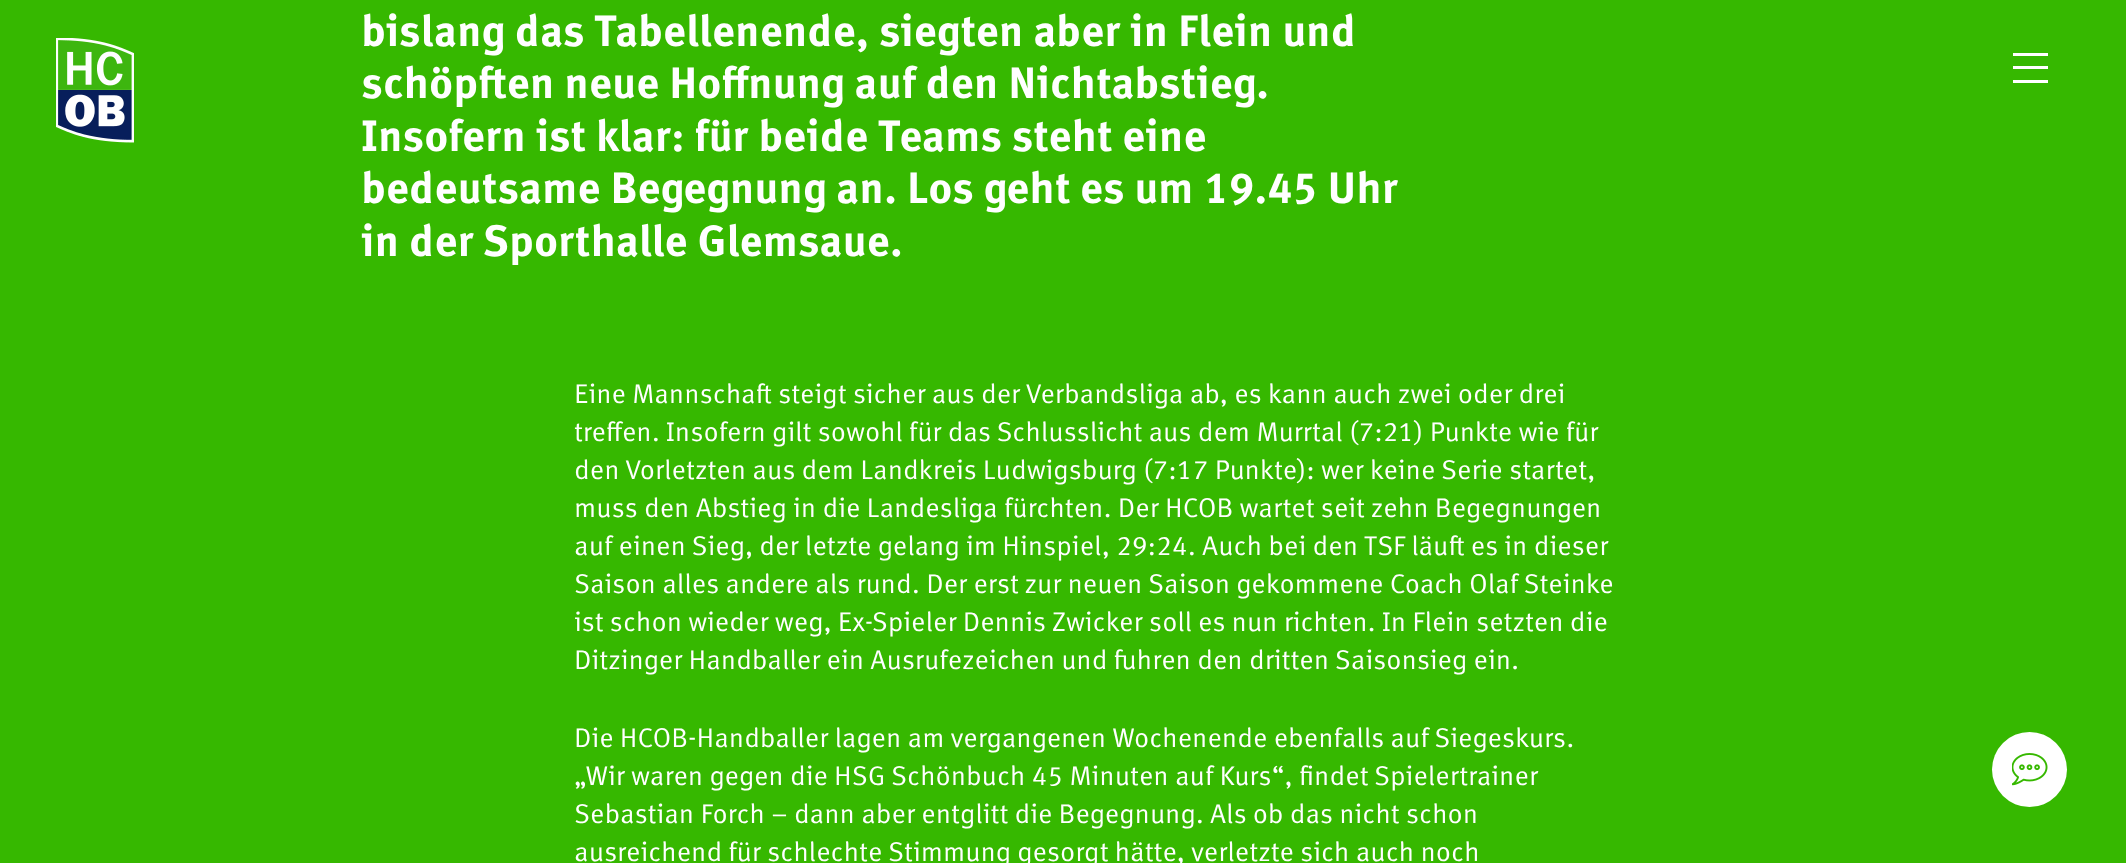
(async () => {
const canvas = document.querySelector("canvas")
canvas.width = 2126
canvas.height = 863
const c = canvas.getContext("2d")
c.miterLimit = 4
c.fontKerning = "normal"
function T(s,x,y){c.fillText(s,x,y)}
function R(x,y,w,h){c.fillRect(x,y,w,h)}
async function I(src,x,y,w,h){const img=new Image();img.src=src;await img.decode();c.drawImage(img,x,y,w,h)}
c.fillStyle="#36b800"
R(0,0,2126,863)
await I("1.png",56,38,78,105)
c.font="bold 43.75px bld"
c.fillStyle="#fff"
T("bislang das Tabellenende, siegten aber in Flein und",361,46)
T("schöpften neue Hoffnung auf den Nichtabstieg.",361,98)
T("Insofern ist klar: für beide Teams steht eine",361,151)
T("bedeutsame Begegnung an. Los geht es um 19.45 Uhr",361,203)
T("in der Sporthalle Glemsaue.",361,256)
c.font="27.15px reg"
T("Eine Mannschaft steigt sicher aus der Verbandsliga ab, es kann auch zwei oder drei",574,403)
T("treffen. Insofern gilt sowohl für das Schlusslicht aus dem Murrtal (7:21) Punkte wie für",574,441)
T("den Vorletzten aus dem Landkreis Ludwigsburg (7:17 Punkte): wer keine Serie startet,",574,479)
T("muss den Abstieg in die Landesliga fürchten. Der HCOB wartet seit zehn Begegnungen",574,517)
T("auf einen Sieg, der letzte gelang im Hinspiel, 29:24. Auch bei den TSF läuft es in dieser",574,555)
T("Saison alles andere als rund. Der erst zur neuen Saison gekommene Coach Olaf Steinke",574,593)
T("ist schon wieder weg, Ex-Spieler Dennis Zwicker soll es nun richten. In Flein setzten die",574,631)
T("Ditzinger Handballer ein Ausrufezeichen und fuhren den dritten Saisonsieg ein.",574,669)
T("Die HCOB-Handballer lagen am vergangenen Wochenende ebenfalls auf Siegeskurs.",574,747)
T("„Wir waren gegen die HSG Schönbuch 45 Minuten auf Kurs“, findet Spielertrainer",574,785)
T("Sebastian Forch – dann aber entglitt die Begegnung. Als ob das nicht schon",574,823)
T("ausreichend für schlechte Stimmung gesorgt hätte, verletzte sich auch noch",574,861)
R(2013,53,35,3)
R(2013,66,35,3)
R(2013,80,35,3)
c.beginPath()
c.arc(2029.5,769.5,37.5,0,7)
c.fill()
await I("2.png",2012,753,36,33)
})()
